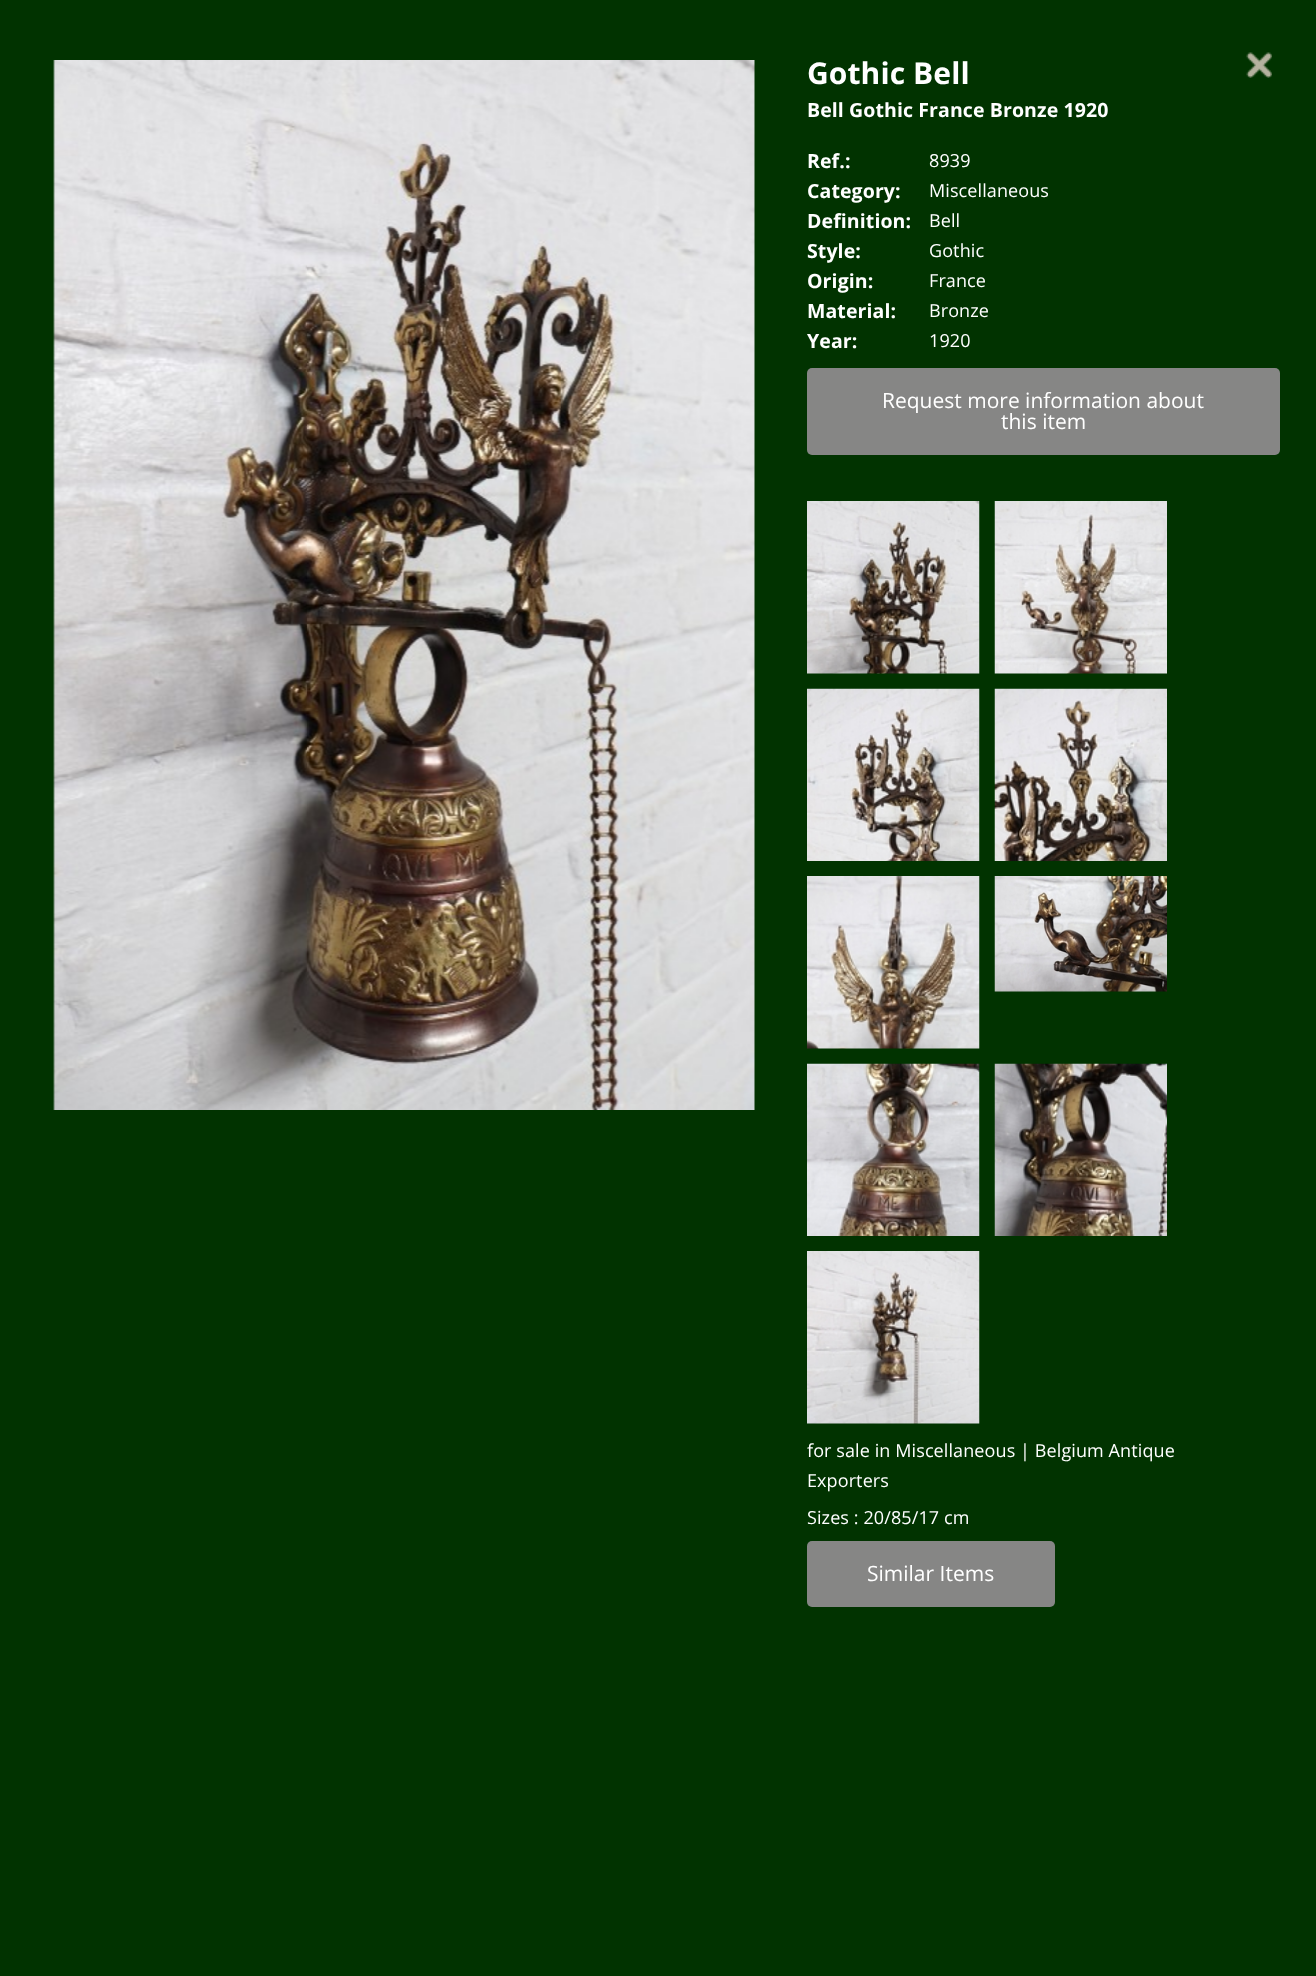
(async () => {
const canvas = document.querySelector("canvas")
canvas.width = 1316
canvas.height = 1976
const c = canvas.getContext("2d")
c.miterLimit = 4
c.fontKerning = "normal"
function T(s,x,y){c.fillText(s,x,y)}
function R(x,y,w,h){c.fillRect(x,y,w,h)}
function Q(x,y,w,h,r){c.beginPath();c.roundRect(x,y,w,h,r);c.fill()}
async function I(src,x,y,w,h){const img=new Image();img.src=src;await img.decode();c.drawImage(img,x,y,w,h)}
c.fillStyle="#013300"
R(0,0,1316,1976)
await I("1.png",53,60,702,1050)
c.letterSpacing="0.1px"
c.font="bold 30px Open Sans"
c.fillStyle="#fff"
T("Gothic Bell",807,84)
c.font="bold 19.5px Open Sans"
T("Bell Gothic France Bronze 1920",807,117)
await I("2.png",1246,52,26,26)
T("Ref.:",807,168)
c.font="18px Open Sans"
T("8939",929,167)
c.font="bold 19.5px Open Sans"
T("Category:",807,198)
c.font="18px Open Sans"
T("Miscellaneous",929,197)
c.font="bold 19.5px Open Sans"
T("Definition:",807,228)
c.font="18px Open Sans"
T("Bell",929,227)
c.font="bold 19.5px Open Sans"
T("Style:",807,258)
c.font="18px Open Sans"
T("Gothic",929,257)
c.font="bold 19.5px Open Sans"
T("Origin:",807,288)
c.font="18px Open Sans"
T("France",929,287)
c.font="bold 19.5px Open Sans"
T("Material:",807,318)
c.font="18px Open Sans"
T("Bronze",929,317)
c.font="bold 19.5px Open Sans"
T("Year:",807,348)
c.font="18px Open Sans"
T("1920",929,347)
c.fillStyle="#868685"
Q(807,368,473,87,5)
c.letterSpacing="0px"
c.font="21px Open Sans"
c.fillStyle="#fff"
T("Request more information about",882,408)
T("this item",1001,429)
await I("3.png",807,501,173,173)
await I("4.png",994,501,173,173)
await I("5.png",807,688,173,173)
await I("6.png",994,688,173,173)
await I("7.png",807,876,173,173)
await I("8.png",994,876,173,116)
await I("9.png",807,1063,173,173)
await I("10.png",994,1063,173,173)
await I("11.png",807,1251,173,173)
c.letterSpacing="0.1px"
c.font="18px Open Sans"
T("for sale in Miscellaneous | Belgium Antique",807,1457)
T("Exporters",807,1487)
T("Sizes : 20/85/17 cm",807,1524)
c.fillStyle="#868685"
Q(807,1541,248,66,5)
c.letterSpacing="0px"
c.font="21px Open Sans"
c.fillStyle="#fff"
T("Similar Items",867,1581)
})()
